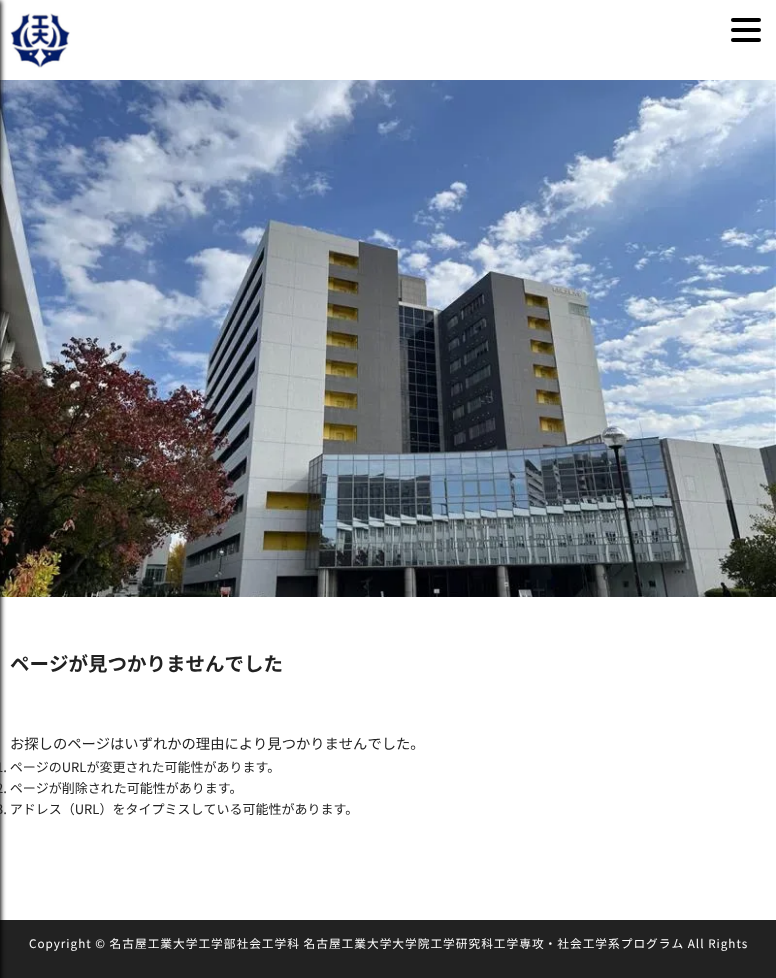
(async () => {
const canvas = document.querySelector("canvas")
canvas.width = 776
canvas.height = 978
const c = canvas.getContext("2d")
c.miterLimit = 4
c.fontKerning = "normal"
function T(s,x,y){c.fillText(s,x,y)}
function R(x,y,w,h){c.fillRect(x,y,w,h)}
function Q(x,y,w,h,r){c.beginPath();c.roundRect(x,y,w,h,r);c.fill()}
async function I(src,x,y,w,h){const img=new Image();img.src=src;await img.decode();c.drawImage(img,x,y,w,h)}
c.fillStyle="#fff"
R(0,0,776,978)
await I("2.png",0,80,776,517)
c.fillStyle="#222"
R(0,920,776,58)
c.fillStyle="#000"
c.filter="blur(2.5px)"
c.beginPath()
c.rect(-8,1,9,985)
c.fill()
c.filter="none"
await I("1.png",10,13,60,55)
Q(731,18,30,4,2)
Q(731,28,30,4,2)
Q(731,38,30,4,2)
c.font="bold 19.5px Noto Sans JP"
c.fillStyle="#222"
T("ページが見つかりませんでした",10,671)
c.font="14.3px Noto Sans JP"
T("お探しのページはいずれかの理由により見つかりませんでした。",10,749)
c.font="13px Noto Sans JP"
T("1. ページのURLが変更された可能性があります。",-4,772)
T("2. ページが削除された可能性があります。",-4,793)
T("3. アドレス（URL）をタイプミスしている可能性があります。",-4,814)
c.letterSpacing="1px"
c.font="11.7px Noto Sans JP"
c.fillStyle="#fff"
T("Copyright © 名古屋⼯業⼤学⼯学部社会⼯学科 名古屋⼯業⼤学⼤学院⼯学研究科⼯学専攻・社会⼯学系プログラム All Rights",29,948)
})()
